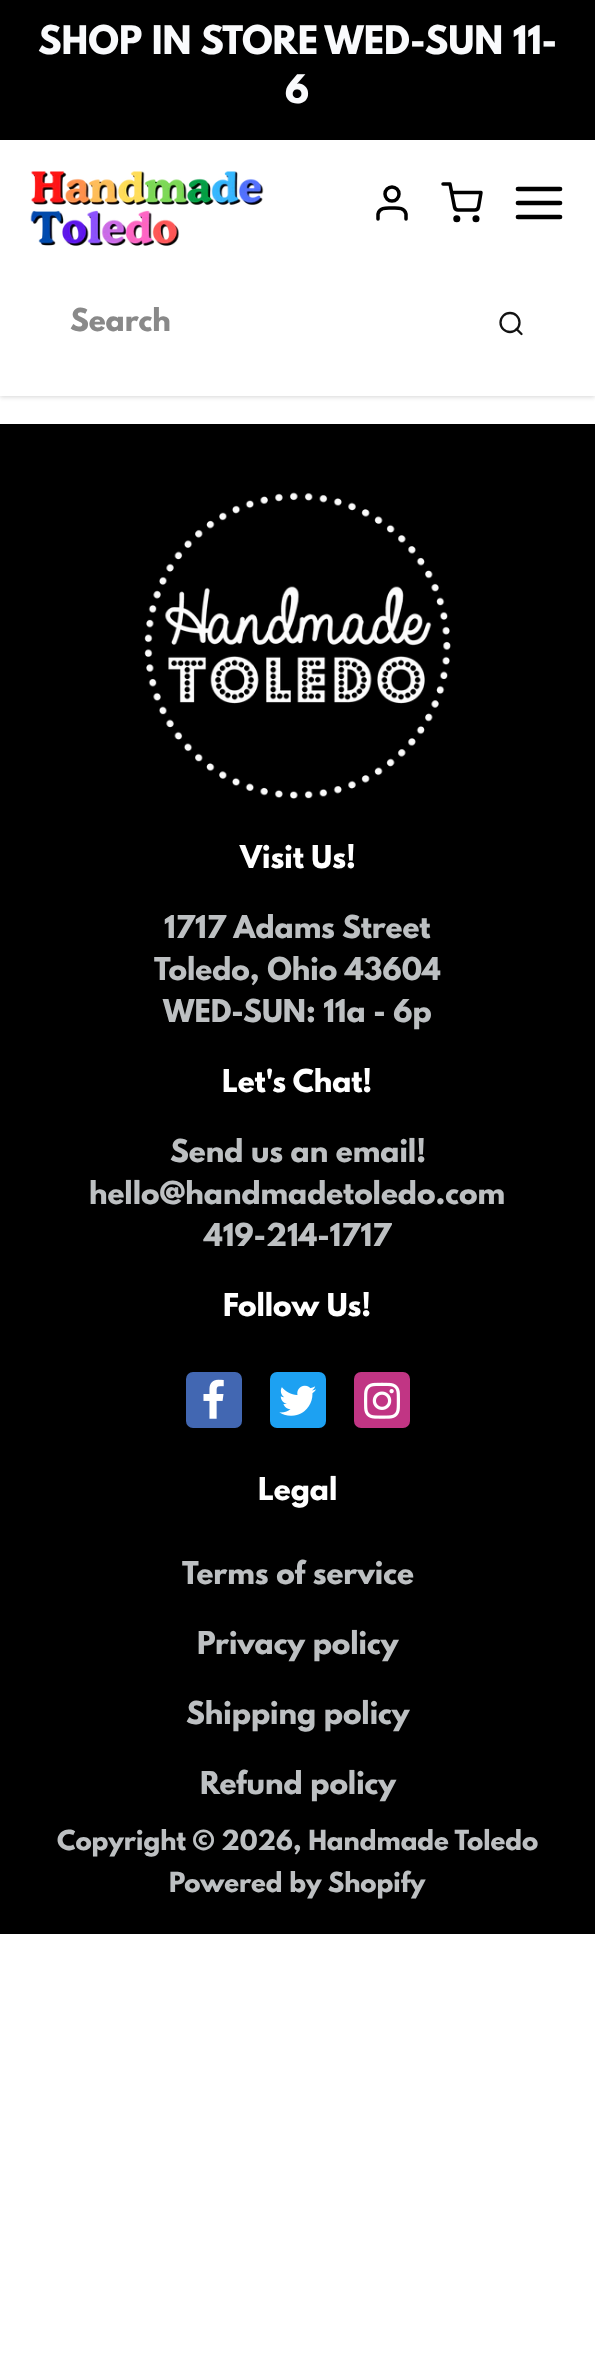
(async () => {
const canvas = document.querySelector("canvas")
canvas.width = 595
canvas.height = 2353
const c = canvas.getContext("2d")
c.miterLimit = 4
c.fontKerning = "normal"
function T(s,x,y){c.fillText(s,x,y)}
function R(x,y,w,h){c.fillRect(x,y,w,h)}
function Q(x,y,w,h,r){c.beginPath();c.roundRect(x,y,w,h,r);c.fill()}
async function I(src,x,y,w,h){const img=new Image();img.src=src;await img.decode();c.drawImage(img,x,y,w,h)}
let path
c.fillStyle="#fff"
R(0,0,595,2353)
c.fillStyle="#0000000f"
c.filter="blur(2px)"
c.beginPath()
c.rect(0,142,595,255)
c.fill()
c.filter="none"
c.fillStyle="#0000001a"
c.filter="blur(2.5px)"
c.beginPath()
c.rect(0,142,595,255)
c.fill()
c.filter="none"
c.fillStyle="#000"
R(0,0,595,140)
c.font="bold 35px League Spartan"
c.fillStyle="#f9fafc"
T("SHOP IN STORE WED-SUN 11-",38,54)
T("6",285,103)
c.fillStyle="#fff"
R(0,140,595,256)
await I("1.png",30,171,234,75)
path = new Path2D("M406 219v-5c-1.5-7-9-6-14-6c-5 0-12.5-1-14 6v5")
c.strokeStyle="#000"
c.lineWidth=3.5
c.lineCap="round"
c.lineJoin="round"
c.stroke(path)
c.beginPath()
c.arc(392,194,7,0,7)
c.stroke()
c.beginPath()
c.arc(456.8,218.8,1.8,0,7)
c.stroke()
c.beginPath()
c.arc(476,218.8,1.8,0,7)
c.stroke()
path = new Path2D("M443 184h7l4.5 23c.5 2 1.5 3 3.5 3h17c1.5 0 3-1 3.5-3l2.5-14.5h-29.5")
c.stroke(path)
path = new Path2D("M518 203h42m-42-14h42m-42 28h42")
c.lineWidth=4.7
c.stroke(path)
c.font="bold 28px League Spartan"
c.fillStyle="#898989"
T("Search",70,331)
c.beginPath()
c.arc(510,322.5,9.5,0,7)
c.strokeStyle="#121212"
c.lineWidth=2.3
c.stroke()
path = new Path2D("M521.5 334l-5-5")
c.stroke(path)
c.fillStyle="#000"
R(0,424,595,1510)
await I("2.png",144,492,307,307)
c.fillStyle="#fff"
T("Visit Us!",240,868)
c.fillStyle="#bdc0c2"
T("1717 Adams Street",164,938)
T("Toledo, Ohio 43604",154,980)
T("WED-SUN: 11a - 6p",163,1022)
c.fillStyle="#fff"
T("Let's Chat!",222,1092)
c.fillStyle="#bdc0c2"
T("Send us an email!",170,1162)
T("hello@handmadetoledo.com",89,1204)
T("419-214-1717",204,1246)
c.fillStyle="#fff"
T("Follow Us!",223,1316)
c.fillStyle="#4267b2"
Q(186,1372,56,56,7)
await I("3.png",203,1379,21,40)
c.fillStyle="#1da1f2"
Q(270,1372,56,56,7)
await I("4.png",279,1385,37,31)
c.fillStyle="#c13584"
Q(354,1372,56,56,7)
await I("5.png",364,1382,36,37)
c.fillStyle="#fff"
T("Legal",258,1500)
c.fillStyle="#bdc0c2"
T("Terms of service",182,1584)
T("Privacy policy",197,1654)
T("Shipping policy",186,1724)
T("Refund policy",200,1794)
c.font="bold 24.5px League Spartan"
T("Copyright © 2026, Handmade Toledo",57,1850)
T("Powered by Shopify",169,1892)
})()
